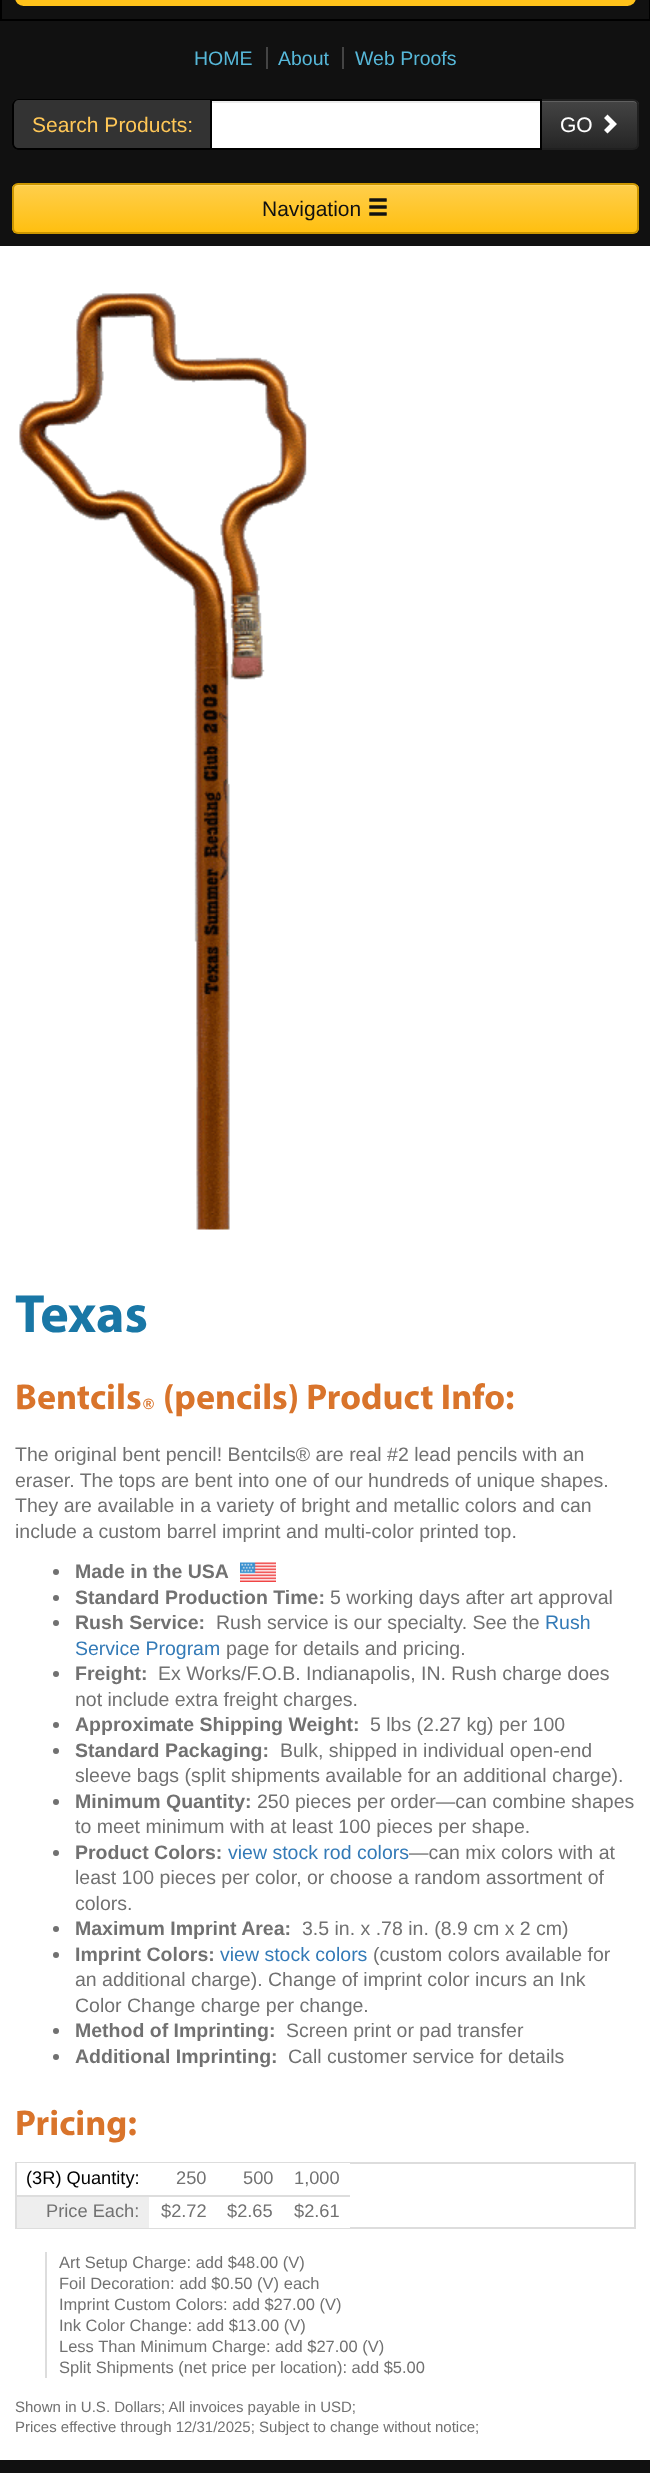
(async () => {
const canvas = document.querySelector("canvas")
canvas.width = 650
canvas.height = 2473
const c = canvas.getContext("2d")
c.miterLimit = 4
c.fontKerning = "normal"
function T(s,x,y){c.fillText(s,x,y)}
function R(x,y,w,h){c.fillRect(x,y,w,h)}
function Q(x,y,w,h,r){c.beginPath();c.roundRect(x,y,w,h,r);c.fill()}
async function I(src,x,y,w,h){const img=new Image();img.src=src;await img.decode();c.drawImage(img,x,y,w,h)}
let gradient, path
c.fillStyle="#111"
R(0,0,650,2473)
c.strokeStyle="#000"
c.lineWidth=2
c.strokeRect(1,-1,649,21)
c.fillStyle="#ffc21a"
Q(15,-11,621,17,11)
c.fillStyle="#444"
R(266,47,2,22)
c.font="19.5px Liberation Sans"
c.fillStyle="#57b8d9"
T("HOME",194,65)
c.fillStyle="#444"
R(342,47,2,22)
c.fillStyle="#57b8d9"
T("About",278,65)
T("Web Proofs",355,65)
c.fillStyle="#333"
c.beginPath()
c.roundRect(12,99,198,51,[6,0,0,6])
c.fill()
c.fillStyle="#000"
path = new Path2D("M18 99h192v51h-192c-3 0-6-3-6-6v-39c0-3 3-6 6-6zm0 1h192v48h-192c-2 0-4-2-4-4v-39c0-2 2-5 4-5z")
c.fill(path,"evenodd")
c.font="21px Liberation Sans"
c.fillStyle="#ffc757"
T("Search Products:",32,132)
c.fillStyle="#fff"
R(212,103,328,45)
c.fillStyle="#ececec"
R(212,101,328,2)
c.save()
c.beginPath()
c.roundRect(540,99,99,51,[0,6,6,0])
c.clip()
gradient = c.createLinearGradient(590,101,590,149)
gradient.addColorStop(0,"#444")
gradient.addColorStop(1,"#252525")
c.fillStyle = gradient
R(542,101,97,48)
c.restore()
c.fillStyle="#606060"
path = new Path2D("M542 102h91c2 0 5 2 5 4c0-3-2-5-5-5h-91z")
c.fill(path)
c.beginPath()
c.roundRect(541,100,97,49,[0,5,5,0])
c.strokeStyle="#202020"
c.stroke()
c.strokeStyle="#000"
c.strokeRect(211,100,330,49)
c.fillStyle="#fff"
T("GO",560,132)
path = new Path2D("M617 124l-9.5 9.5l-3.5-3.5l6-6l-6-6l3.5-3.5z")
c.fill(path)
c.save()
c.beginPath()
c.roundRect(12,183,627,51,6)
c.clip()
gradient = c.createLinearGradient(326,184,326,233)
gradient.addColorStop(0,"#ffcf4d")
gradient.addColorStop(1,"#ffbf0f")
c.fillStyle = gradient
R(12,185,627,48)
c.restore()
c.fillStyle="#ffd666"
path = new Path2D("M18 186h615c2 0 5 2 5 4c0-3-2-5-5-5h-614c-3 0-5 2-5 5c0-2 2-4 4-4z")
c.fill(path)
c.beginPath()
c.roundRect(13,184,625,49,5)
c.strokeStyle="#cc9600"
c.stroke()
c.fillStyle="#111"
T("Navigation",262,216)
await I("1.png",369,198,18,18)
c.fillStyle="#fff"
R(0,246,650,2214)
await I("2.png",19,293,288,937)
c.font="bold 54px Myriad"
c.fillStyle="#1977a6"
T("Texas",15,1332)
c.font="bold 36px Myriad"
c.fillStyle="#d9742b"
T("Bentcils",15,1409)
c.font="bold 15px Liberation Sans"
T("®",143,1409)
c.font="bold 36px Myriad"
T("(pencils) Product Info:",163,1409)
c.font="19.5px Liberation Sans"
c.fillStyle="#717171"
T("The original bent pencil! Bentcils® are real #2 lead pencils with an",15,1461)
T("eraser. The tops are bent into one of our hundreds of unique shapes.",15,1487)
T("They are available in a variety of bright and metallic colors and can",15,1512)
T("include a custom barrel imprint and multi-color printed top.",15,1538)
c.beginPath()
c.arc(56,1572,3,0,7)
c.fill()
c.font="bold 19.5px Liberation Sans"
T("Made in the USA",75,1578)
await I("3.png",240,1562,36,20)
c.beginPath()
c.arc(56,1598,3,0,7)
c.fill()
T("Standard Production Time:",75,1604)
c.font="19.5px Liberation Sans"
T("5 working days after art approval",330,1604)
c.beginPath()
c.arc(56,1623,3,0,7)
c.fill()
c.font="bold 19.5px Liberation Sans"
T("Rush Service:",75,1629)
c.font="19.5px Liberation Sans"
T("Rush service is our specialty. See the",216,1629)
c.fillStyle="#337ab7"
T("Rush",545,1629)
T("Service Program",75,1655)
c.fillStyle="#717171"
T("page for details and pricing.",226,1655)
c.beginPath()
c.arc(56,1674,3,0,7)
c.fill()
c.font="bold 19.5px Liberation Sans"
T("Freight:",75,1680)
c.font="19.5px Liberation Sans"
T("Ex Works/F.O.B. Indianapolis, IN. Rush charge does",158,1680)
T("not include extra freight charges.",75,1706)
c.beginPath()
c.arc(56,1725,3,0,7)
c.fill()
c.font="bold 19.5px Liberation Sans"
T("Approximate Shipping Weight:",75,1731)
c.font="19.5px Liberation Sans"
T("5 lbs (2.27 kg) per 100",370,1731)
c.beginPath()
c.arc(56,1751,3,0,7)
c.fill()
c.font="bold 19.5px Liberation Sans"
T("Standard Packaging:",75,1757)
c.font="19.5px Liberation Sans"
T("Bulk, shipped in individual open-end",280,1757)
T("sleeve bags (split shipments available for an additional charge).",75,1782)
c.beginPath()
c.arc(56,1802,3,0,7)
c.fill()
c.font="bold 19.5px Liberation Sans"
T("Minimum Quantity:",75,1808)
c.font="19.5px Liberation Sans"
T("250 pieces per order—can combine shapes",257,1808)
T("to meet minimum with at least 100 pieces per shape.",75,1833)
c.beginPath()
c.arc(56,1853,3,0,7)
c.fill()
c.font="bold 19.5px Liberation Sans"
T("Product Colors:",75,1859)
c.font="19.5px Liberation Sans"
c.fillStyle="#337ab7"
T("view stock rod colors",228,1859)
c.fillStyle="#717171"
T("—can mix colors with at",409,1859)
T("least 100 pieces per color, or choose a random assortment of",75,1884)
T("colors.",75,1910)
c.beginPath()
c.arc(56,1929,3,0,7)
c.fill()
c.font="bold 19.5px Liberation Sans"
T("Maximum Imprint Area:",75,1935)
c.font="19.5px Liberation Sans"
T("3.5 in. x .78 in. (8.9 cm x 2 cm)",302,1935)
c.beginPath()
c.arc(56,1955,3,0,7)
c.fill()
c.font="bold 19.5px Liberation Sans"
T("Imprint Colors:",75,1961)
c.font="19.5px Liberation Sans"
c.fillStyle="#337ab7"
T("view stock colors",220,1961)
c.fillStyle="#717171"
T("(custom colors available for",373,1961)
T("an additional charge). Change of imprint color incurs an Ink",75,1986)
T("Color Change charge per change.",75,2012)
c.beginPath()
c.arc(56,2031,3,0,7)
c.fill()
c.font="bold 19.5px Liberation Sans"
T("Method of Imprinting:",75,2037)
c.font="19.5px Liberation Sans"
T("Screen print or pad transfer",286,2037)
c.beginPath()
c.arc(56,2057,3,0,7)
c.fill()
c.font="bold 19.5px Liberation Sans"
T("Additional Imprinting:",75,2063)
c.font="19.5px Liberation Sans"
T("Call customer service for details",288,2063)
c.font="bold 36px Myriad"
c.fillStyle="#d9742b"
T("Pricing:",15,2135)
c.strokeStyle="#ddd"
c.strokeRect(16,2163,619,65)
c.fillStyle="#fff"
R(17,2163,333,1)
c.font="18.25px Liberation Sans"
c.fillStyle="#000"
T("(3R) Quantity:",26,2184)
c.fillStyle="#717171"
T("250",176,2184)
T("500",243,2184)
T("1,000",294,2184)
c.fillStyle="#eee"
R(17,2197,132,31)
c.fillStyle="#717171"
T("Price Each:",46,2217)
c.fillStyle="#fff"
R(149,2227,201,1)
c.fillStyle="#717171"
T("$2.72",161,2217)
T("$2.65",227,2217)
c.fillStyle="#ddd"
R(17,2195,333,2)
c.fillStyle="#717171"
T("$2.61",294,2217)
c.fillStyle="#ddd"
R(45,2252,2,126)
c.font="16.5px Liberation Sans"
c.fillStyle="#717171"
T("Art Setup Charge: add $48.00 (V)",59,2268)
T("Foil Decoration: add $0.50 (V) each",59,2289)
T("Imprint Custom Colors: add $27.00 (V)",59,2310)
T("Ink Color Change: add $13.00 (V)",59,2331)
T("Less Than Minimum Charge: add $27.00 (V)",59,2352)
T("Split Shipments (net price per location): add $5.00",59,2373)
c.font="15px Liberation Sans"
T("Shown in U.S. Dollars; All invoices payable in USD;",15,2412)
T("Prices effective through 12/31/2025; Subject to change without notice;",15,2432)
})()
